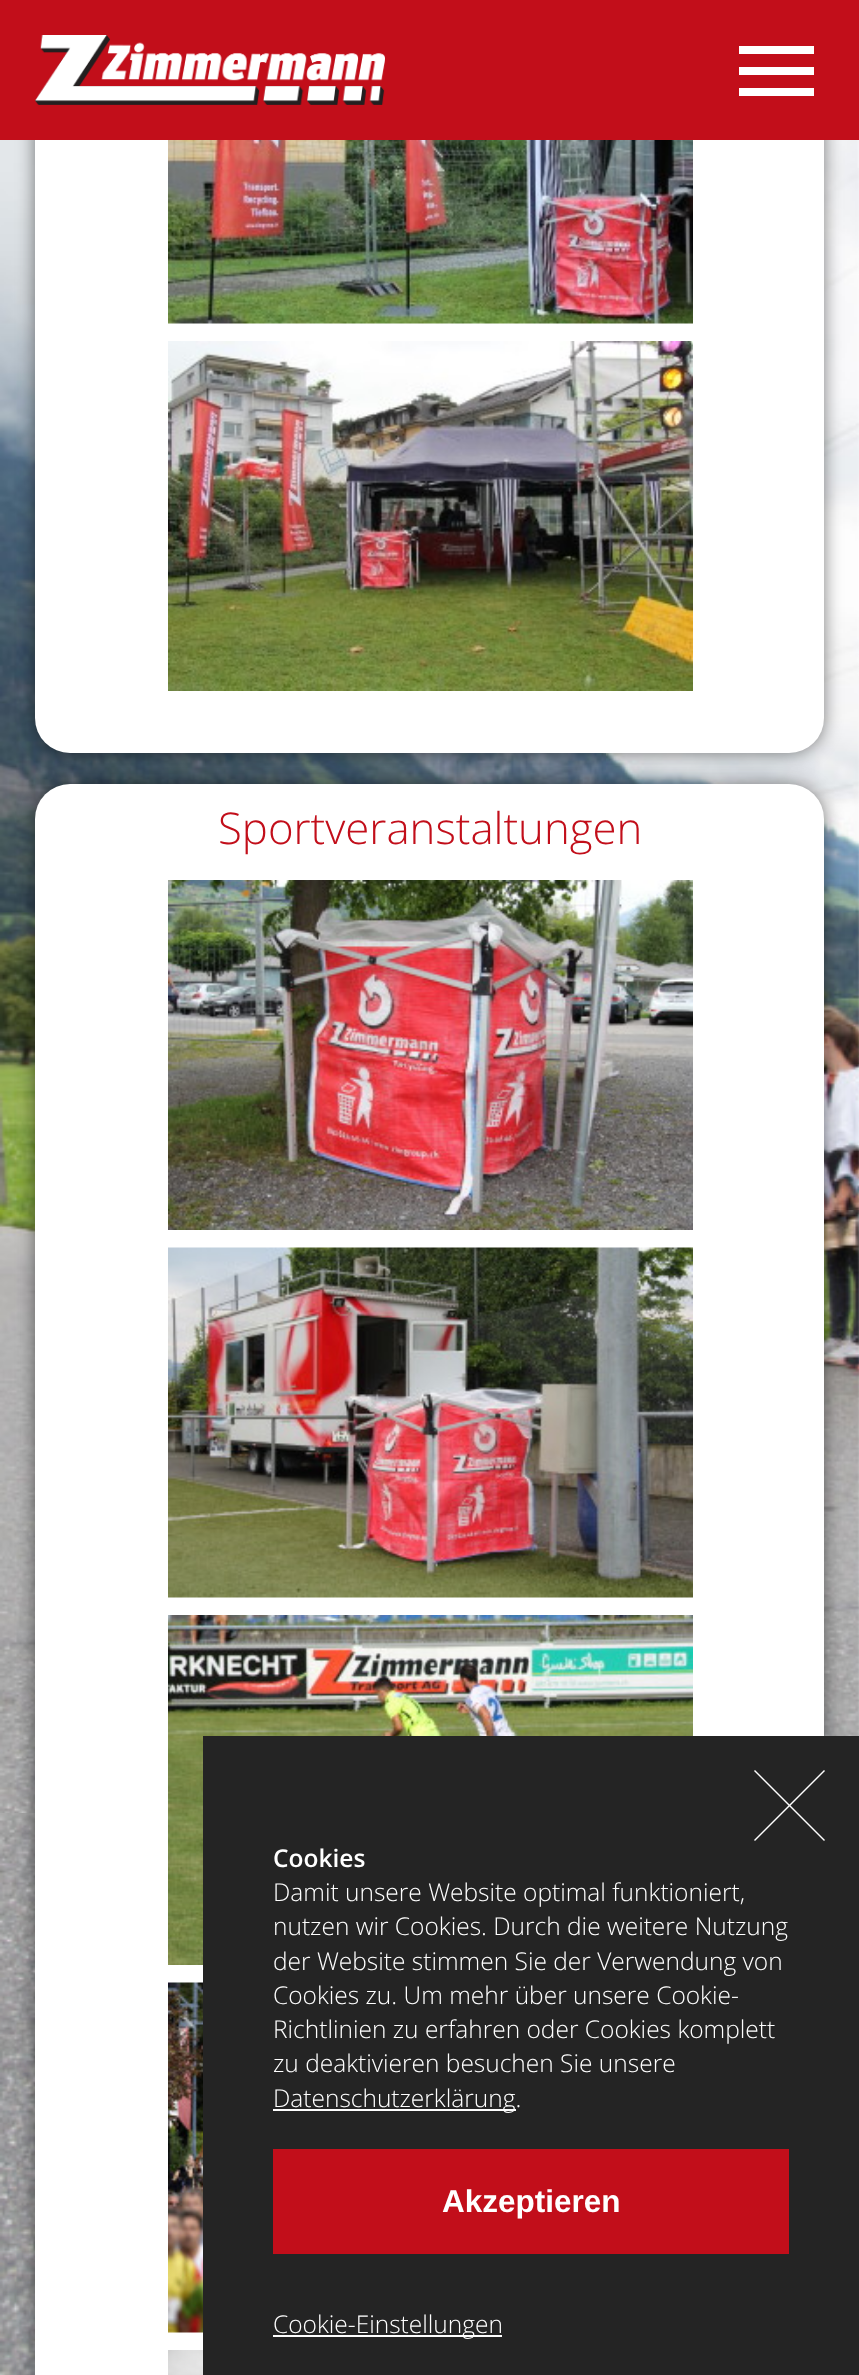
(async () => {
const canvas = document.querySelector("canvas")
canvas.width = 859
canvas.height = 2375
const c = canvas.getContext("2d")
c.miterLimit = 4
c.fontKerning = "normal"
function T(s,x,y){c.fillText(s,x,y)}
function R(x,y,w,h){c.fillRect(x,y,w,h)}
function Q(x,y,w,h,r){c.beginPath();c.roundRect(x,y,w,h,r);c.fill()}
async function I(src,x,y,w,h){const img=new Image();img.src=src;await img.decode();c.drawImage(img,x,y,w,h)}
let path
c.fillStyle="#fff"
R(0,0,859,2375)
await I("1.png",0,140,859,2235)
c.fillStyle="#00000080"
c.filter="blur(9px)"
c.beginPath()
c.roundRect(35,-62,789,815,35)
c.fill()
c.filter="none"
c.fillStyle="#fff"
Q(35,-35,789,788,35)
c.fillStyle="#c20e1a"
R(0,0,859,140)
await I("2.png",35,35,350,70)
c.fillStyle="#fff"
R(739,46,75,8)
R(739,67,75,8)
R(739,88,75,8)
await I("3.png",168,140,525,184)
await I("4.png",168,341,525,350)
c.fillStyle="#00000080"
c.filter="blur(9px)"
c.beginPath()
c.roundRect(35,784,789,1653,35)
c.fill()
c.filter="none"
c.fillStyle="#fff"
Q(35,784,789,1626,35)
c.font="300 43.75px Open Sans"
c.fillStyle="#c20e1a"
T("Sportveranstaltungen",218,844)
await I("5.png",168,880,525,350)
await I("6.png",168,1247,525,351)
await I("7.png",168,1615,525,350)
await I("8.png",168,1982,35,351)
await I("9.png",168,2350,35,25)
await I("10.png",857,168,2,1568)
c.fillStyle="#242424"
R(203,1736,656,639)
c.fillStyle="#fff"
path = new Path2D("M755 1770l70 70l-1 1l-70-70z")
c.fill(path)
path = new Path2D("M754 1840l70-70l1 1l-70 70z")
c.fill(path)
c.font="600 24.5px Open Sans"
T("Cookies",273,1867)
c.font="300 24.5px Open Sans"
T("Damit unsere Website optimal funktioniert,",273,1901)
T("nutzen wir Cookies. Durch die weitere Nutzung",273,1935)
T("der Website stimmen Sie der Verwendung von",273,1970)
T("Cookies zu. Um mehr über unsere Cookie-",273,2004)
T("Richtlinien zu erfahren oder Cookies komplett",273,2038)
T("zu deaktivieren besuchen Sie unsere",273,2072)
R(273,2109,243,2)
T("Datenschutzerklärung.",273,2107)
c.fillStyle="#c20e1a"
R(273,2149,516,105)
c.font="bold 31.5px Liberation Sans"
c.fillStyle="#fff"
T("Akzeptieren",442,2212)
R(273,2335,229,2)
c.font="300 24.5px Open Sans"
T("Cookie-Einstellungen",273,2333)
})()
